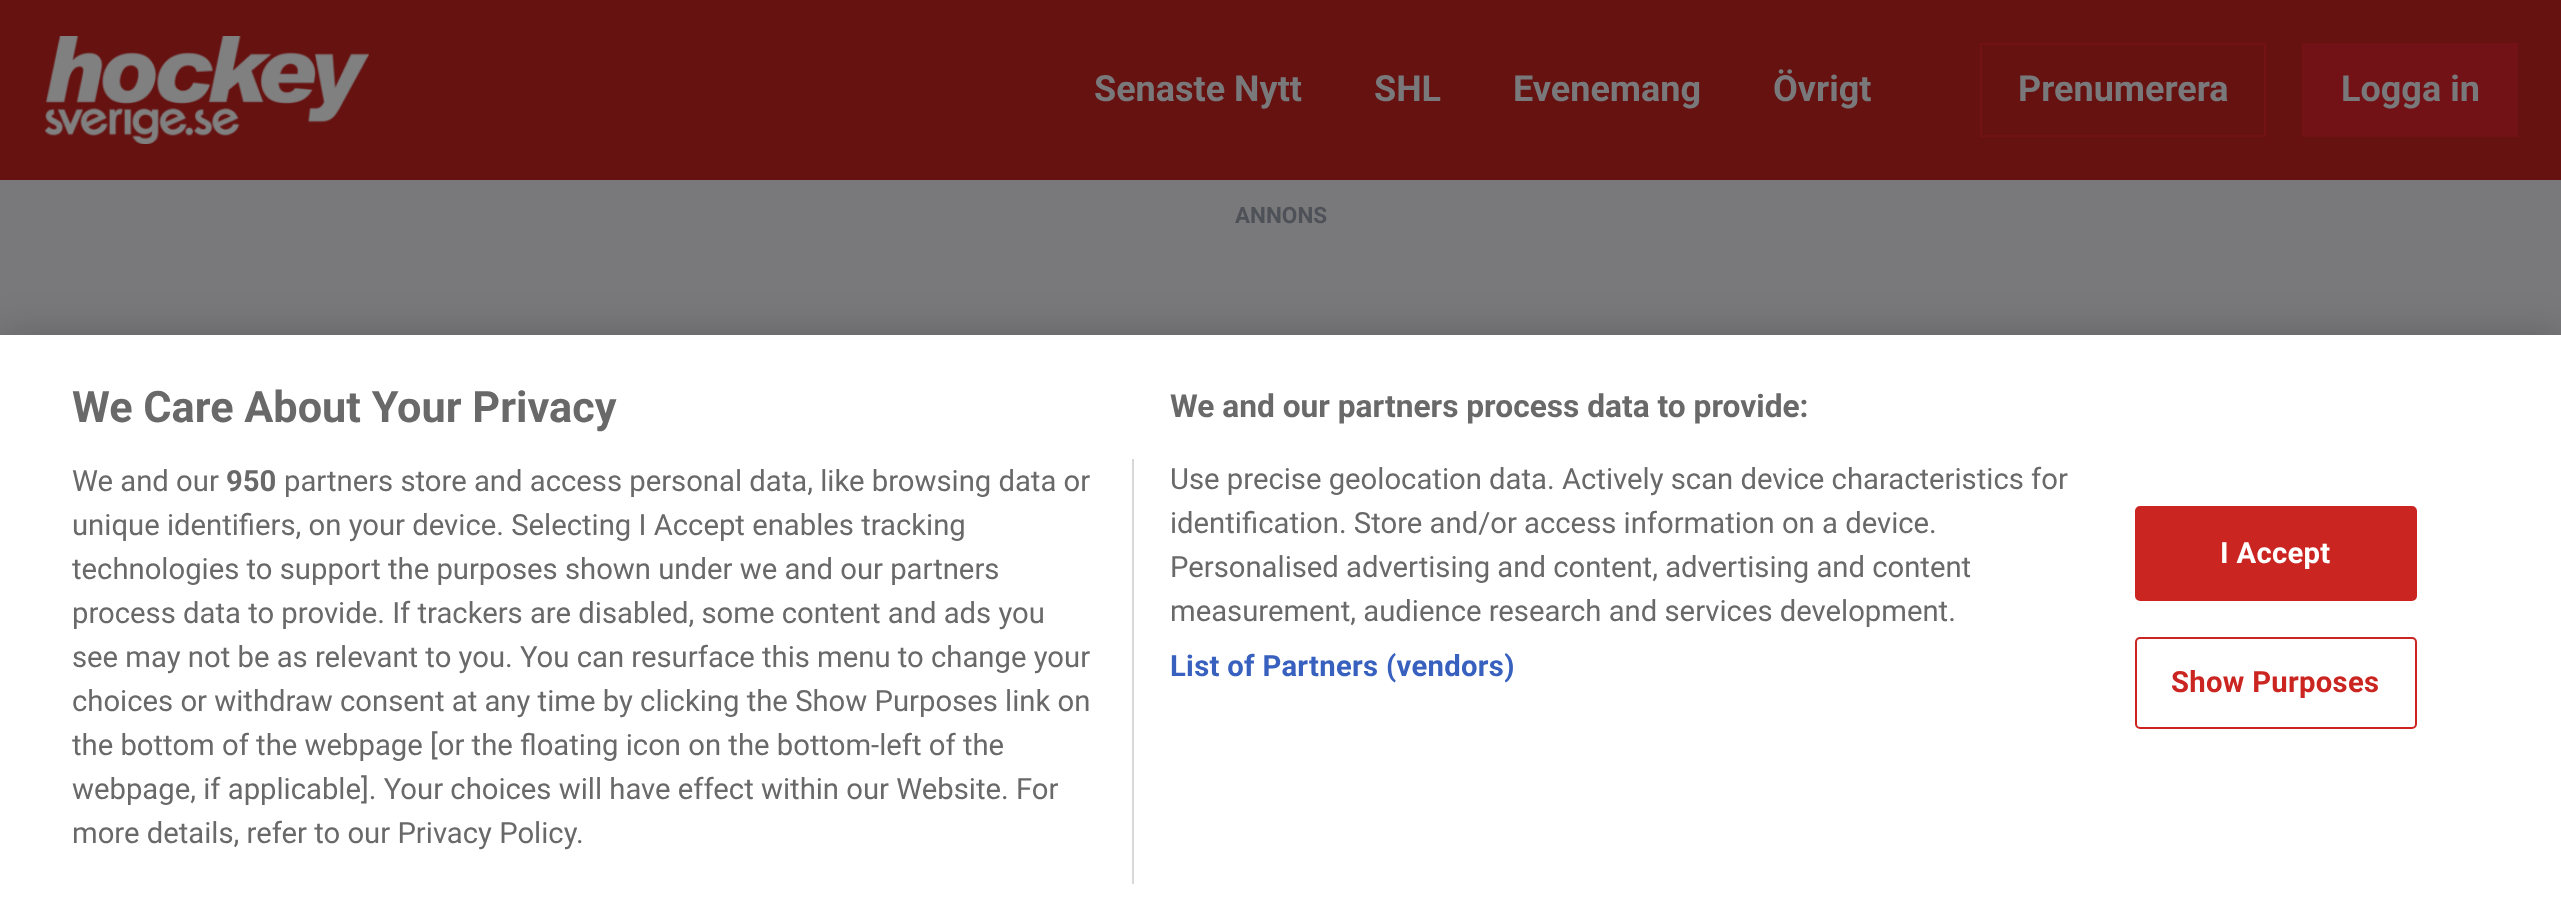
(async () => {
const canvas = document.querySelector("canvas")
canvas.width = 2561
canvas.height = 906
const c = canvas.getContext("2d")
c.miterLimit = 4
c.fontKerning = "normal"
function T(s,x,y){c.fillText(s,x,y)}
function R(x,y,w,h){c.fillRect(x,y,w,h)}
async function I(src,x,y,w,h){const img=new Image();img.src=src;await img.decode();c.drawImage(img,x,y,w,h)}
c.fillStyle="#79797b"
R(0,0,2561,906)
c.fillStyle="#661211"
R(0,0,2561,180)
await I("1.png",45,36,324,108)
c.font="bold 36px Roboto"
c.fillStyle="#79797b"
T("Senaste Nytt",1094,101)
T("SHL",1374,101)
T("Evenemang",1513,101)
T("Övrigt",1773,101)
c.strokeStyle="#731216"
c.lineWidth=2
c.strokeRect(1981,44,284,92)
T("Prenumerera",2018,101)
c.fillStyle="#731216"
R(2302,43,216,94)
c.fillStyle="#79797b"
T("Logga in",2341,101)
c.font="bold 22.5px Roboto"
c.fillStyle="#4e5258"
T("ANNONS",1235,223)
c.fillStyle="#00000033"
c.filter="blur(20px)"
c.beginPath()
c.rect(0,335,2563,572)
c.fill()
c.filter="none"
c.fillStyle="#fff"
R(0,335,2561,571)
c.font="bold 43.25px Roboto"
c.fillStyle="#696969"
T("We Care About Your Privacy",72,422)
c.font="bold 31.7px Roboto"
T("We and our partners process data to provide:",1170,417)
c.font="29.25px Roboto"
T("Use precise geolocation data. Actively scan device characteristics for",1170,489)
T("identification. Store and/or access information on a device.",1170,533)
T("Personalised advertising and content, advertising and content",1170,577)
T("measurement, audience research and services development.",1170,621)
c.letterSpacing="0.3px"
c.font="bold 29.25px Roboto"
c.fillStyle="#3860be"
T("List of Partners (vendors)",1170,676)
c.fillStyle="#d8d8d8"
R(1132,459,2,425)
c.letterSpacing="0px"
c.font="29.25px Roboto"
c.fillStyle="#696969"
T("We and our",72,491)
c.font="bold 29.25px Roboto"
T("950",226,491)
c.font="29.25px Roboto"
T("partners store and access personal data, like browsing data or",284,491)
T("unique identifiers, on your device. Selecting I Accept enables tracking",72,535)
T("technologies to support the purposes shown under we and our partners",72,579)
T("process data to provide. If trackers are disabled, some content and ads you",72,623)
T("see may not be as relevant to you. You can resurface this menu to change your",72,667)
T("choices or withdraw consent at any time by clicking the Show Purposes link on",72,711)
T("the bottom of the webpage [or the floating icon on the bottom-left of the",72,755)
T("webpage, if applicable]. Your choices will have effect within our Website. For",72,799)
T("more details, refer to our Privacy Policy.",72,843)
c.fillStyle="#cb2522"
c.beginPath()
c.roundRect(2136,507,280,93,4)
c.fill()
c.strokeStyle="#cb2522"
c.stroke()
c.letterSpacing="0.3px"
c.font="bold 29.25px Roboto"
c.fillStyle="#fff"
T("I Accept",2220,563)
c.beginPath()
c.roundRect(2136,638,280,90,4)
c.stroke()
c.fillStyle="#cb2522"
T("Show Purposes",2171,692)
})()
